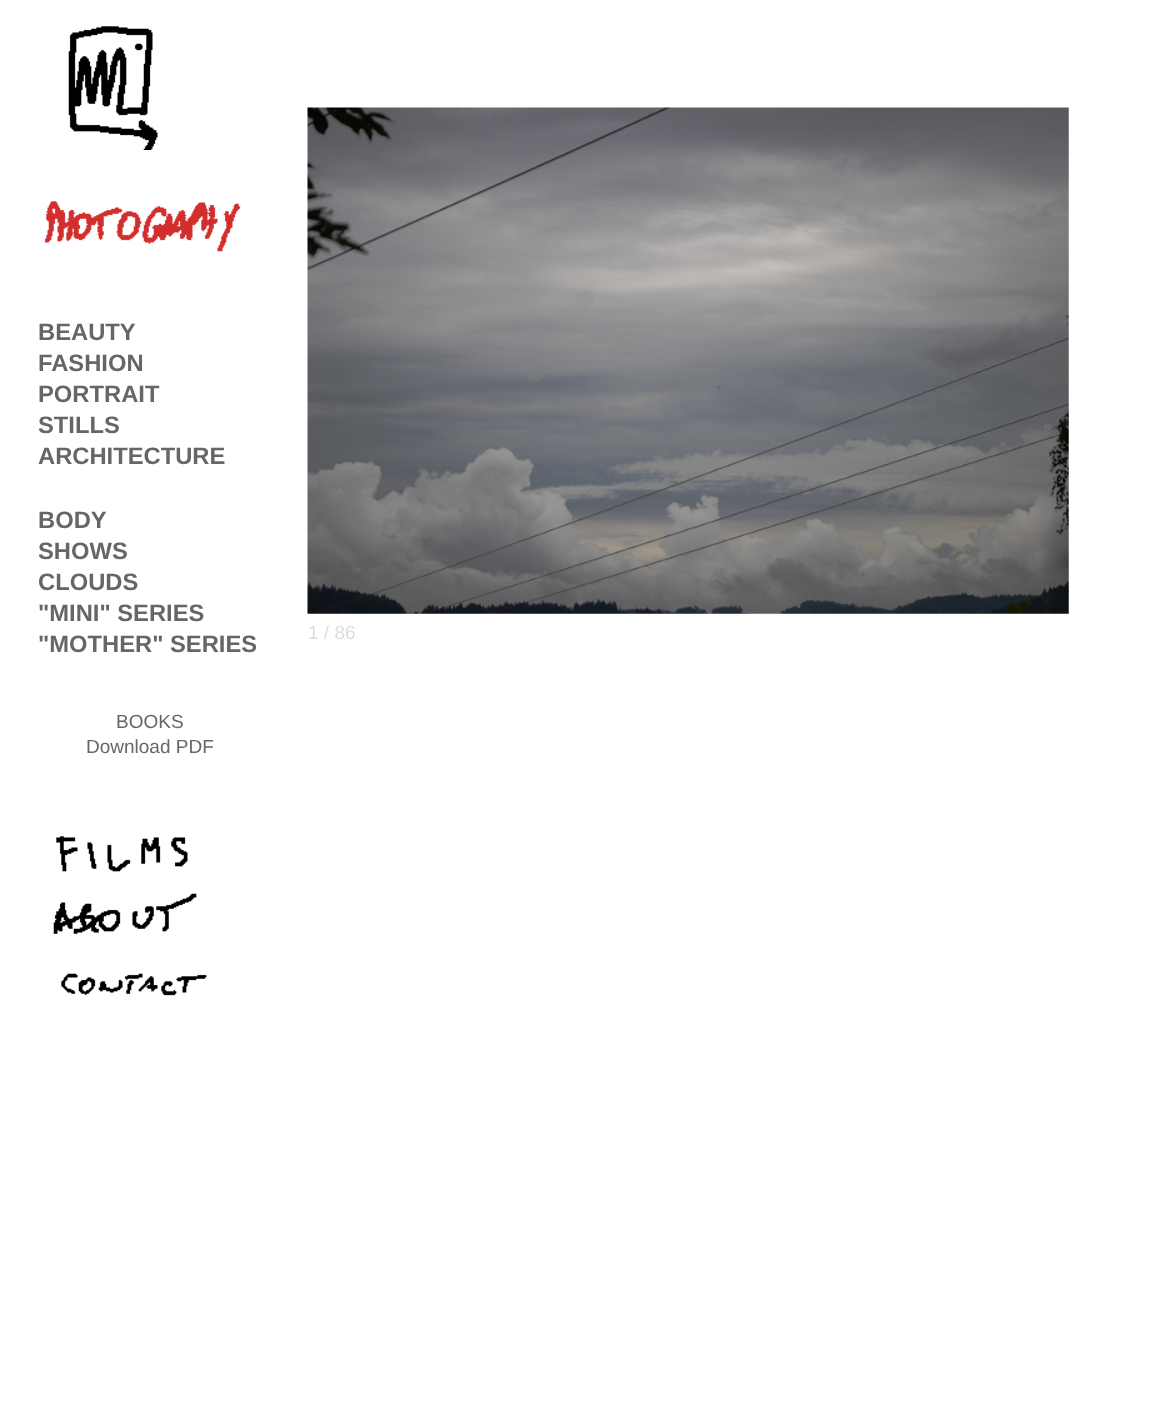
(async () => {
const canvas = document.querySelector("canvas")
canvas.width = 1171
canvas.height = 1427
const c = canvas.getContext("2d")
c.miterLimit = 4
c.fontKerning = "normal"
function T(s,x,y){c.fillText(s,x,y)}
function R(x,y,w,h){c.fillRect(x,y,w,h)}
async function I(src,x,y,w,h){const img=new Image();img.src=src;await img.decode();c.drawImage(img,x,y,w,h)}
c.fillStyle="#fff"
R(0,0,1171,1427)
await I("1.png",68,26,90,124)
await I("2.png",44,201,197,51)
c.font="bold 23.75px Liberation Sans"
c.fillStyle="#666"
T("BEAUTY",38,340)
T("FASHION",38,371)
T("PORTRAIT",38,402)
T("STILLS",38,433)
T("ARCHITECTURE",38,464)
T("BODY",38,528)
T("SHOWS",38,559)
T("CLOUDS",38,590)
T("\"MINI\" SERIES",38,621)
T("\"MOTHER\" SERIES",38,652)
c.font="19px Liberation Sans"
T("BOOKS",116,728)
T("Download PDF",86,753)
await I("3.png",56,836,132,36)
await I("4.png",53,893,144,41)
await I("5.png",61,973,146,23)
await I("6.png",307,107,762,507)
c.fillStyle="#ddd"
T("1 / 86",308,639)
})()
